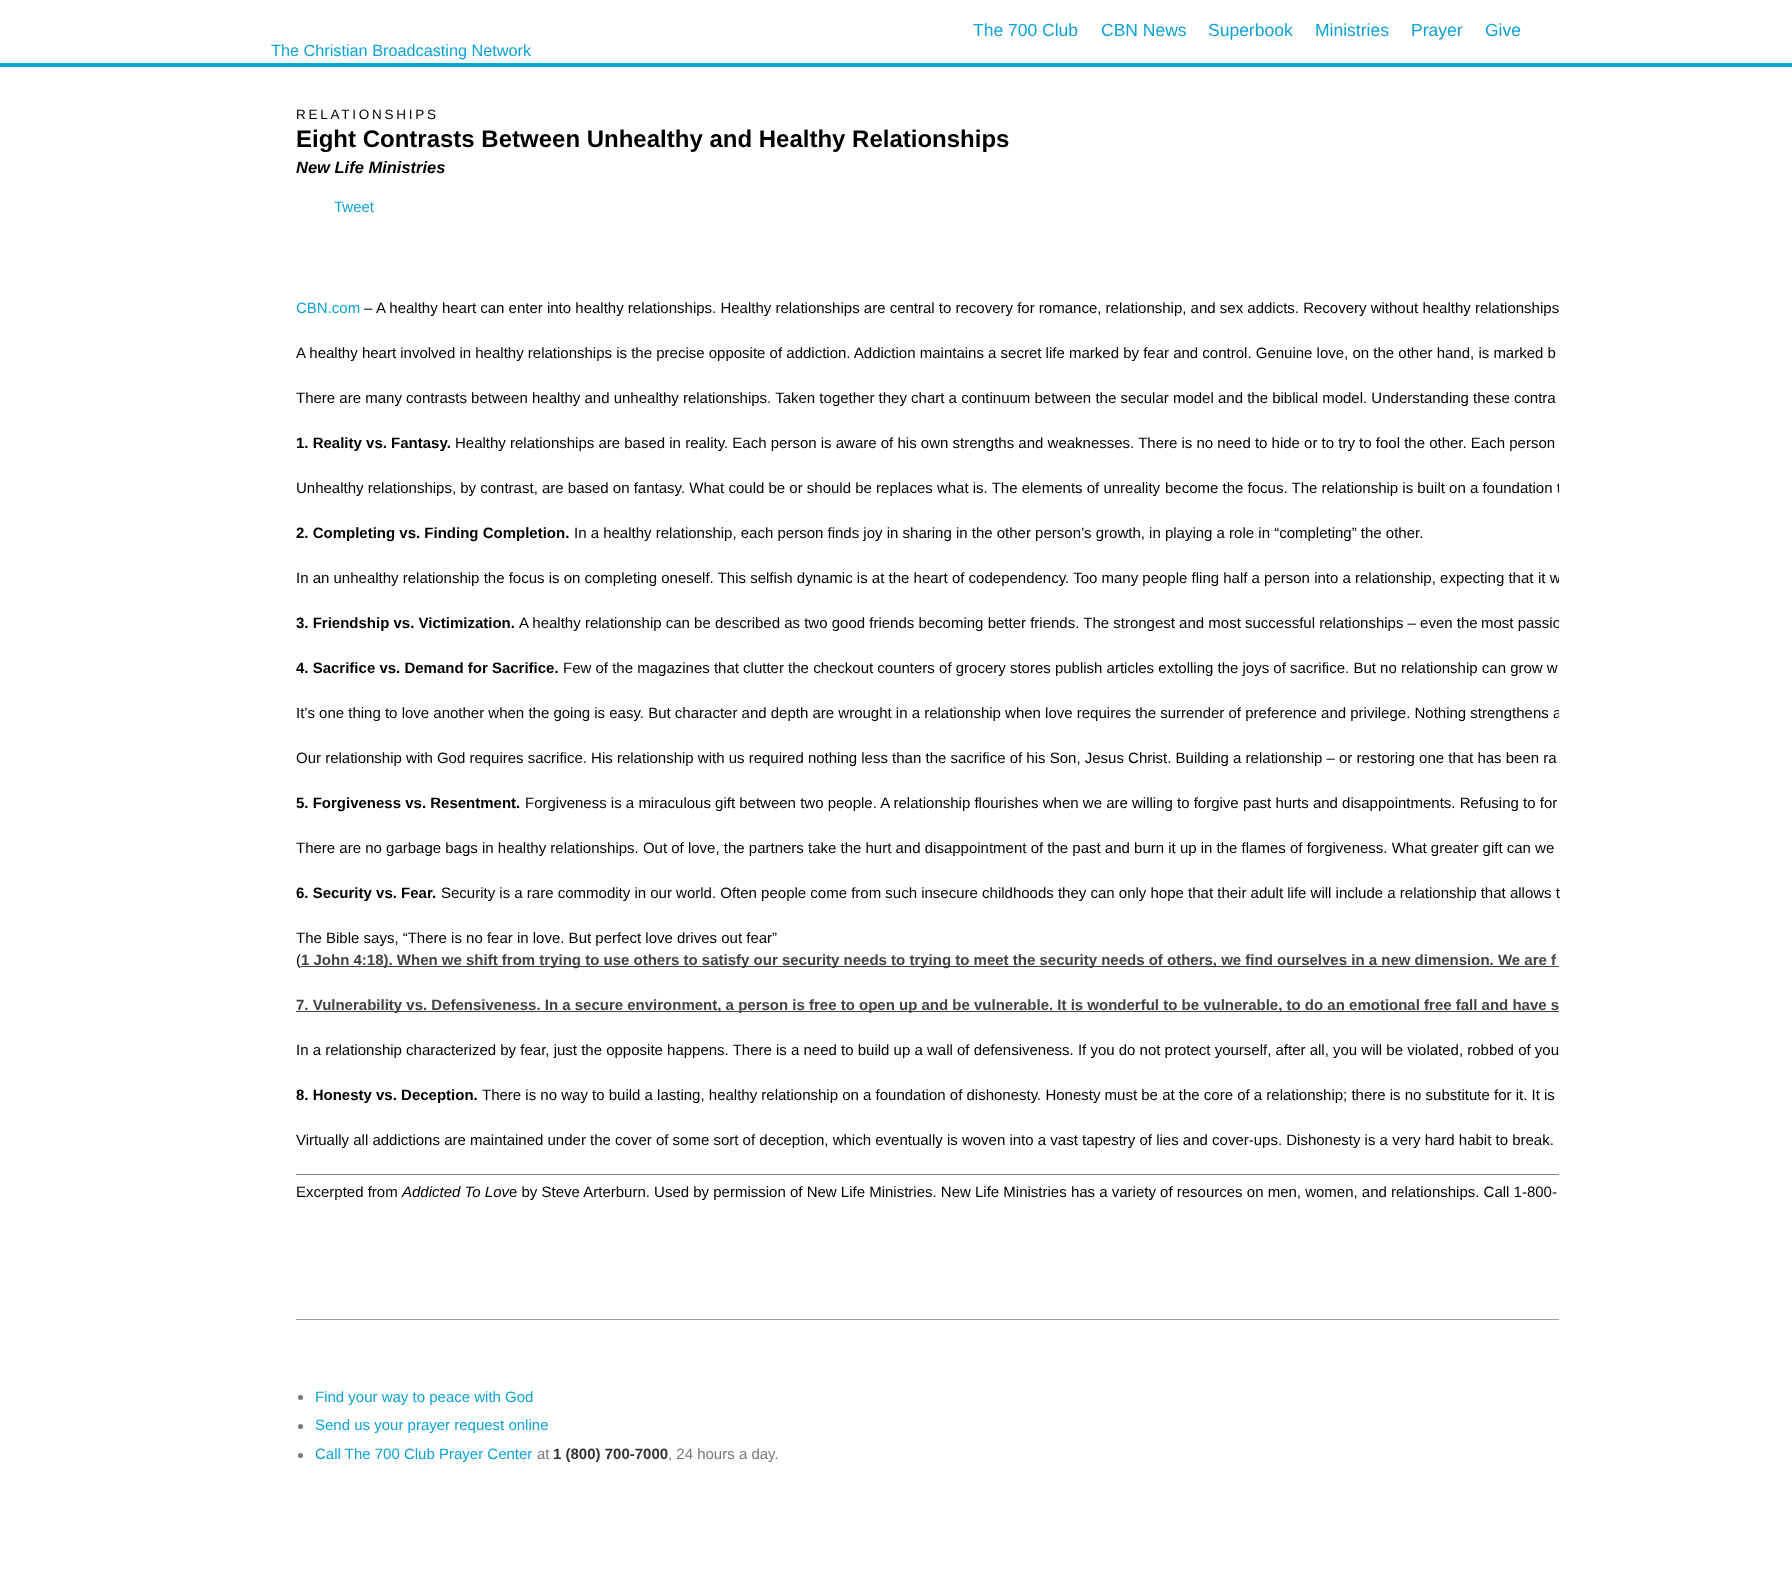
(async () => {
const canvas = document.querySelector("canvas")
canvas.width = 1792
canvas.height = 1569
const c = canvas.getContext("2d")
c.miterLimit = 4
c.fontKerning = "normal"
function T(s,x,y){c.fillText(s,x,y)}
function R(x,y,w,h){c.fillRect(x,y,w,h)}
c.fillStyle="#fff"
R(0,0,1792,1569)
c.fillStyle="#0ca3d4"
R(0,63,1792,4)
c.font="17.5px Liberation Sans"
T("The 700 Club",973,36)
T("CBN News",1101,36)
T("Superbook",1208,36)
T("Ministries",1315,36)
T("Prayer",1411,36)
T("Give",1485,36)
c.font="16.25px Liberation Sans"
T("The Christian Broadcasting Network",271,56)
c.letterSpacing="2.75px"
c.font="13.5px Liberation Sans"
c.fillStyle="#000"
T("RELATIONSHIPS",296,119)
c.letterSpacing="0px"
c.font="bold 24px Liberation Sans"
T("Eight Contrasts Between Unhealthy and Healthy Relationships",296,147)
c.font="italic bold 16.5px Liberation Sans"
T("New Life Ministries",296,173)
c.font="15px Liberation Sans"
c.fillStyle="#0ca3d4"
T("Tweet",334,212)
T("CBN.com",296,313)
c.fillStyle="#000"
T("–",364,313)
T("A healthy heart can enter into healthy relationships. Healthy relationships are central to recovery for romance, relationship, and sex addicts. Recovery without healthy relationships",376,313)
T("A healthy heart involved in healthy relationships is the precise opposite of addiction. Addiction maintains a secret life marked by fear and control. Genuine love, on the other hand, is marked b",296,358)
T("There are many contrasts between healthy and unhealthy relationships. Taken together they chart a continuum between the secular model and the biblical model. Understanding these contra",296,403)
c.font="bold 15px Liberation Sans"
T("1. Reality vs. Fantasy.",296,448)
c.font="15px Liberation Sans"
T("Healthy relationships are based in reality. Each person is aware of his own strengths and weaknesses. There is no need to hide or to try to fool the other. Each person",455,448)
T("Unhealthy relationships, by contrast, are based on fantasy. What could be or should be replaces what is. The elements of unreality",296,493)
c.save()
c.beginPath()
c.rect(234,75,1325,1490)
c.clip()
T("become the focus. The relationship is built on a foundation t",1165,493)
c.restore()
c.font="bold 15px Liberation Sans"
T("2. Completing vs. Finding Completion.",296,538)
c.font="15px Liberation Sans"
T("In a healthy relationship, each person finds joy in sharing in the other person’s growth, in playing a role in “completing” the other.",574,538)
T("In an unhealthy relationship the focus is on completing oneself. This selfish dynamic is at the heart of codependency. Too many people fling half a person into a relationship, expecting that",296,583)
c.save()
c.beginPath()
c.rect(234,75,1325,1490)
c.clip()
T("it w",1538,583)
c.restore()
c.font="bold 15px Liberation Sans"
T("3. Friendship vs. Victimization.",296,628)
c.font="15px Liberation Sans"
T("A healthy relationship can be described as two good friends becoming better friends. The strongest and most successful relationships – even the",519,628)
c.save()
c.beginPath()
c.rect(234,75,1325,1490)
c.clip()
T("most passio",1481,628)
c.restore()
c.font="bold 15px Liberation Sans"
T("4. Sacrifice vs. Demand for Sacrifice.",296,673)
c.font="15px Liberation Sans"
T("Few of the magazines that clutter the checkout counters of grocery stores publish articles extolling the joys of sacrifice. But no relationship can grow w",563,673)
T("It’s one thing to love another when the going is easy. But character and depth are wrought in a relationship when love requires the surrender of preference and privilege. Nothing strengthens",296,718)
c.save()
c.beginPath()
c.rect(234,75,1325,1490)
c.clip()
T("a",1553,718)
c.restore()
T("Our relationship with God requires sacrifice. His relationship with us required nothing less than the sacrifice of his Son, Jesus Christ. Building a relationship – or restoring one that has been ra",296,763)
c.font="bold 15px Liberation Sans"
T("5. Forgiveness vs. Resentment.",296,808)
c.font="15px Liberation Sans"
T("Forgiveness is a miraculous gift between two people. A relationship flourishes when we are willing to forgive past hurts and disappointments. Refusing to for",525,808)
T("There are no garbage bags in healthy relationships. Out of love, the partners take the hurt and disappointment of the past and burn it up in the flames of forgiveness. What greater gift can we",296,853)
c.font="bold 15px Liberation Sans"
T("6. Security vs. Fear.",296,898)
c.font="15px Liberation Sans"
T("Security is a rare commodity in our world. Often people come from such insecure childhoods they can only hope that their adult life will include a relationship that allows t",441,898)
T("The Bible says, “There is no fear in love. But perfect love drives out fear”",296,943)
T("(",296,965)
c.fillStyle="#454240"
R(301,966,1258,1)
c.font="bold 15px Liberation Sans"
T("1 John 4:18). When we shift from trying to use others to satisfy our security needs to trying to meet the security needs of others, we find ourselves in a new dimension. We are f",301,965)
R(296,1011,1263,1)
T("7. Vulnerability vs. Defensiveness. In a secure environment, a person is free to open up and be vulnerable. It is wonderful to be vulnerable, to do an emotional free fall and have s",296,1010)
c.font="15px Liberation Sans"
c.fillStyle="#000"
T("In a relationship characterized by fear, just the opposite happens. There is a need to build up a wall of defensiveness. If you do not protect yourself, after all, you will be violated, robbed of you",296,1055)
c.font="bold 15px Liberation Sans"
T("8. Honesty vs. Deception.",296,1100)
c.font="15px Liberation Sans"
T("There is no way to build a lasting, healthy relationship on a foundation of dishonesty. Honesty must be at the core of a relationship; there is no substitute for it. It is",482,1100)
T("Virtually all addictions are maintained under the cover of some sort of deception, which eventually is woven into a vast tapestry of lies and cover-ups. Dishonesty is a very hard habit to break.",296,1145)
c.fillStyle="#808080"
R(296,1174,1263,1)
c.fillStyle="#000"
T("Excerpted from",296,1197)
c.font="italic 15px Liberation Sans"
T("Addicted To Lov",402,1197)
c.font="15px Liberation Sans"
T("e by Steve Arterburn. Used by permission of New Life Ministries. New Life Ministries has a variety of resources on men, women, and relationships. Call 1-800-",509,1197)
c.fillStyle="#9f9f9f"
R(296,1319,1263,1)
c.fillStyle="#777"
c.beginPath()
c.arc(300.5,1397.5,2.5,0,7)
c.fill()
c.fillStyle="#0ca3d4"
T("Find your way to peace with God",315,1402)
c.fillStyle="#777"
c.beginPath()
c.arc(300.5,1426.5,2.5,0,7)
c.fill()
c.fillStyle="#0ca3d4"
T("Send us your prayer request online",315,1430)
c.fillStyle="#777"
c.beginPath()
c.arc(300.5,1455.5,2.5,0,7)
c.fill()
c.fillStyle="#0ca3d4"
T("Call The 700 Club Prayer Center",315,1459)
c.fillStyle="#777"
T("at",537,1459)
c.font="bold 15px Liberation Sans"
c.fillStyle="#333"
T("1 (800) 700-7000",553,1459)
c.font="15px Liberation Sans"
c.fillStyle="#777"
T(", 24 hours a day.",668,1459)
})()
